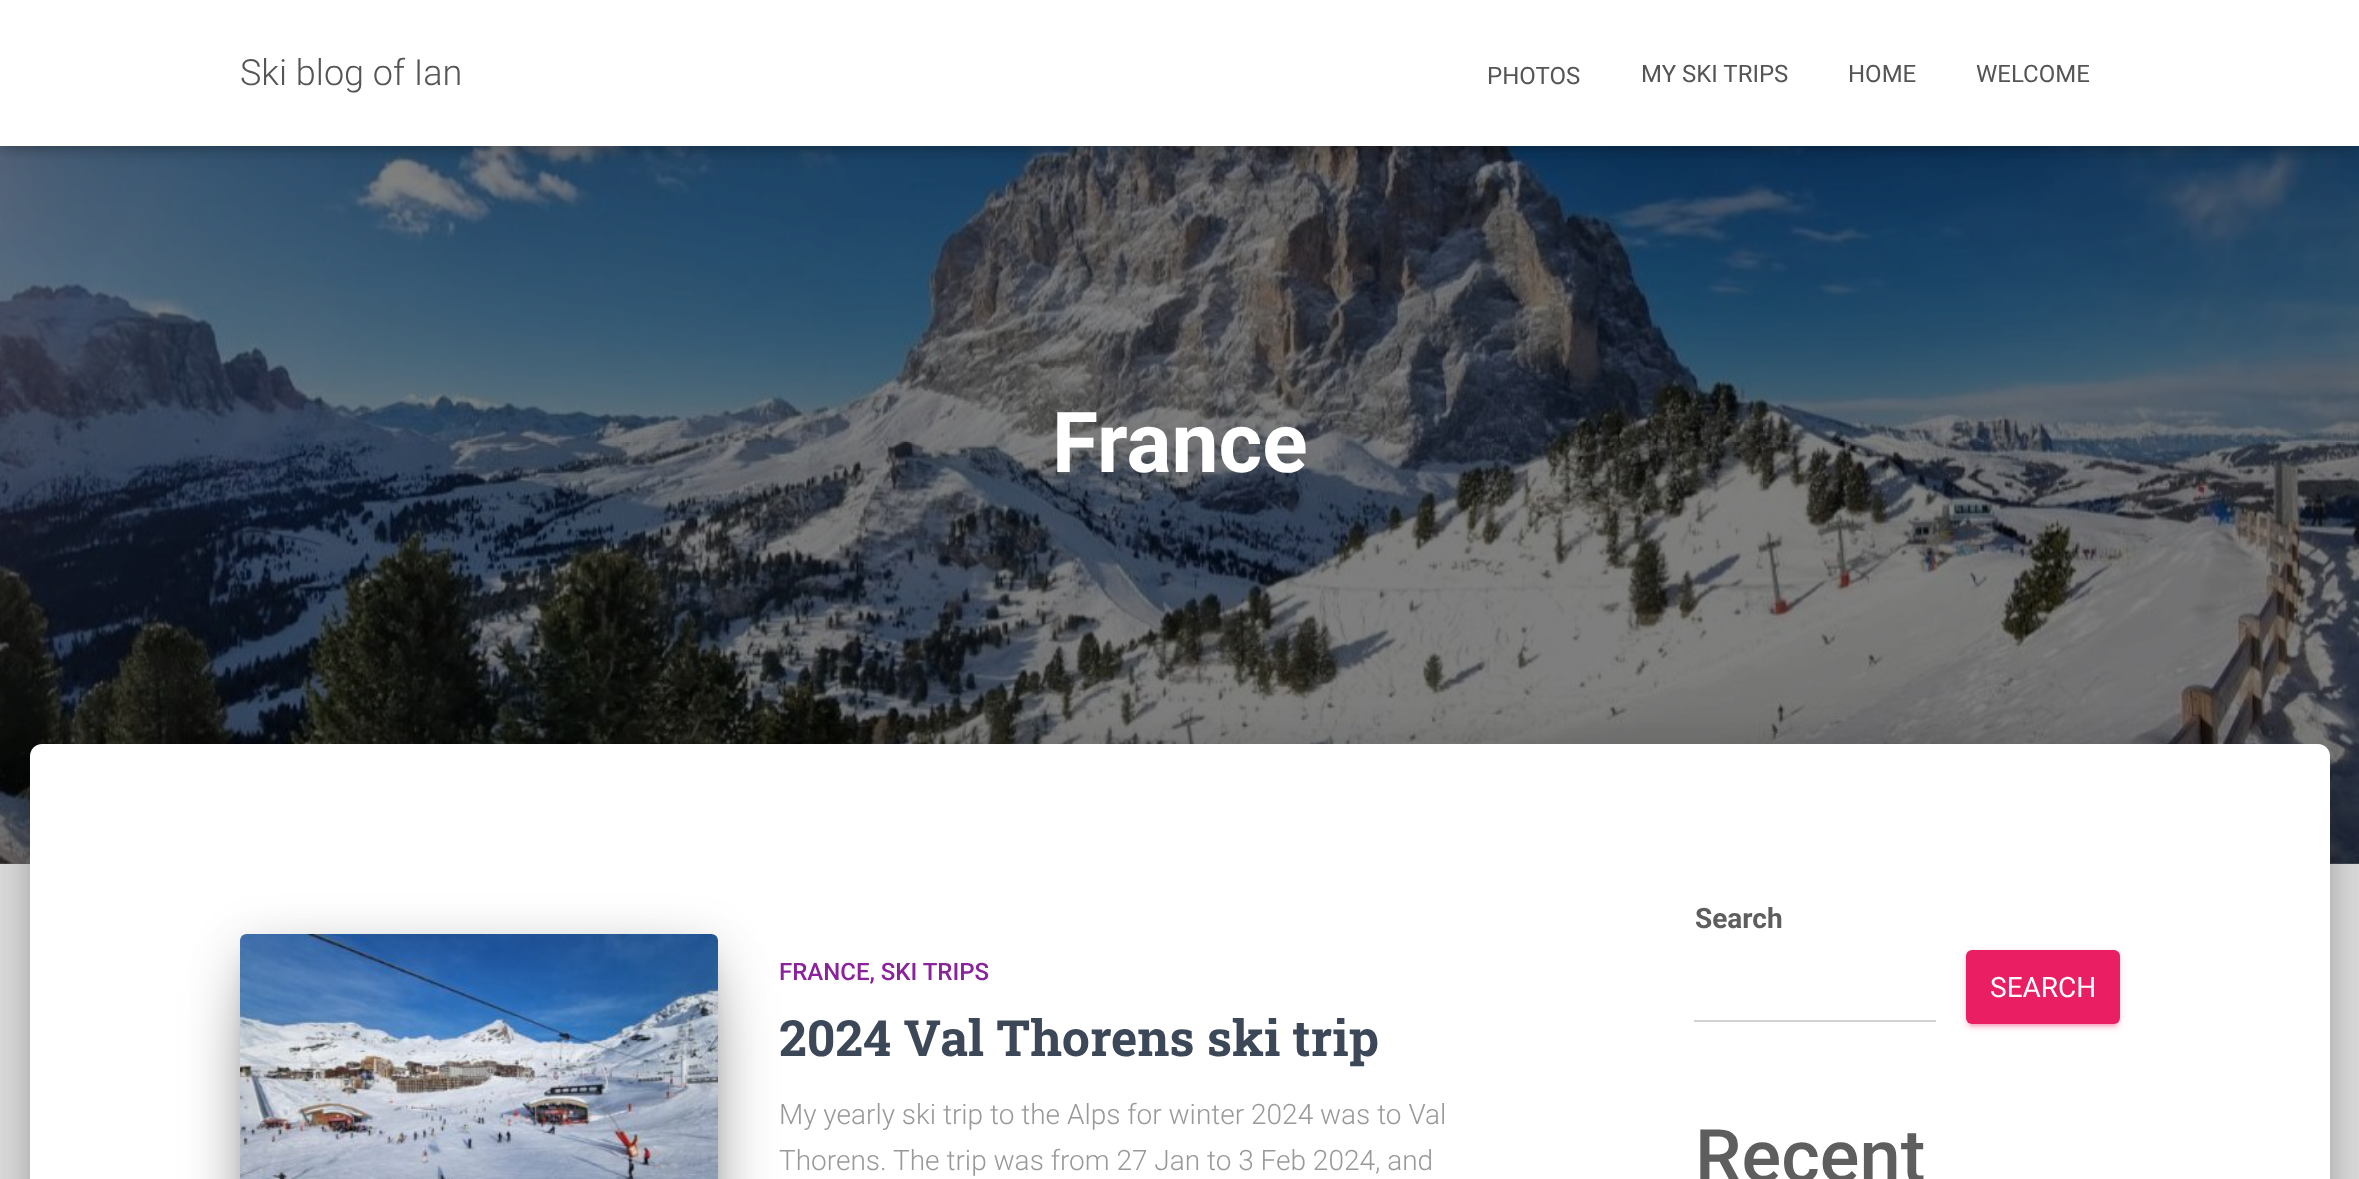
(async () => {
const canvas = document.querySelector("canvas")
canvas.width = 2359
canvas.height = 1179
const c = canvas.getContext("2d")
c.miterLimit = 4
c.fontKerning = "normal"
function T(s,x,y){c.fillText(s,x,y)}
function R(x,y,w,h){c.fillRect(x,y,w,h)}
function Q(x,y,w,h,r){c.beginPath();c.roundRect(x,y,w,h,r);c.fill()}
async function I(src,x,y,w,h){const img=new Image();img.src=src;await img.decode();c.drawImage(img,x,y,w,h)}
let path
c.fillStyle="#e5e5e5"
R(0,0,2359,1179)
c.fillStyle="#737373"
R(0,863,2359,1)
await I("1.png",0,146,2359,718)
c.fillStyle="#0000001a"
c.filter="blur(5px)"
c.beginPath()
c.rect(4,12,2352,138)
c.fill()
c.filter="none"
c.fillStyle="#0000001f"
c.filter="blur(10px)"
c.beginPath()
c.rect(0,2,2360,146)
c.fill()
c.filter="none"
c.fillStyle="#0000006b"
c.filter="blur(10px)"
c.beginPath()
c.rect(12,14,2336,122)
c.fill()
c.filter="none"
c.fillStyle="#fff"
R(0,0,2359,146)
c.font="300 36px Roboto"
c.fillStyle="#555"
T("Ski blog of Ian",240,85)
c.font="24px Roboto"
T("PHOTOS",1487,84)
T("MY SKI TRIPS",1641,82)
T("HOME",1848,82)
T("WELCOME",1976,82)
c.font="bold 84px Roboto"
c.fillStyle="#fff"
T("France",1052,472)
c.fillStyle="#00000033"
c.filter="blur(10px)"
c.beginPath()
c.roundRect(40,770,2280,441,2)
c.fill()
c.filter="none"
c.fillStyle="#0000001f"
c.filter="blur(30px)"
c.beginPath()
c.roundRect(20,746,2320,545,22)
c.fill()
c.filter="none"
c.fillStyle="#00000024"
c.filter="blur(24px)"
c.beginPath()
c.roundRect(26,772,2308,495,16)
c.fill()
c.filter="none"
c.fillStyle="#fff"
path = new Path2D("M42 744h2276c6.5 0 12 5.5 12 12v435h-2300v-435c0-6.5 5.5-12 12-12z")
c.fill(path)
c.fillStyle="#00000033"
c.filter="blur(10px)"
c.beginPath()
c.rect(250,960,458,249)
c.fill()
c.filter="none"
c.fillStyle="#0000001f"
c.filter="blur(25px)"
c.beginPath()
c.roundRect(240,942,478,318,6)
c.fill()
c.filter="none"
c.fillStyle="#0000008f"
c.filter="blur(38px)"
c.beginPath()
c.rect(264,990,430,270)
c.fill()
c.filter="none"
await I("2.png",240,934,478,245)
c.font="500 24px Roboto"
c.fillStyle="#89229b"
T("FRANCE, SKI TRIPS",779,980)
c.font="bold 50px Roboto Slab"
c.fillStyle="#3c4858"
T("2024 Val Thorens ski trip",779,1056)
c.font="300 28px Roboto"
c.fillStyle="#999"
T("My yearly ski trip to the Alps for winter 2024 was to Val",779,1124)
T("Thorens. The trip was from 27 Jan to 3 Feb 2024, and",779,1170)
c.font="bold 28px Roboto"
c.fillStyle="#5e5e5e"
T("Search",1695,928)
c.fillStyle="#e91e631f"
c.filter="blur(5px)"
c.beginPath()
c.roundRect(1966,952,154,74,6)
c.fill()
c.filter="none"
c.fillStyle="#e91e6333"
c.filter="blur(1px)"
c.beginPath()
c.roundRect(1970,960,146,66,2)
c.fill()
c.filter="none"
c.fillStyle="#e91e6324"
c.filter="blur(2px)"
c.beginPath()
c.roundRect(1966,954,154,74,6)
c.fill()
c.filter="none"
c.fillStyle="#e91e63"
Q(1966,950,154,74,6)
c.font="28px Roboto"
c.fillStyle="#fff"
T("SEARCH",1990,997)
c.fillStyle="#d2d2d2"
R(1694,1020,242,2)
c.font="500 74px Roboto"
c.fillStyle="#5e5e5e"
T("Recent",1695,1182)
})()
